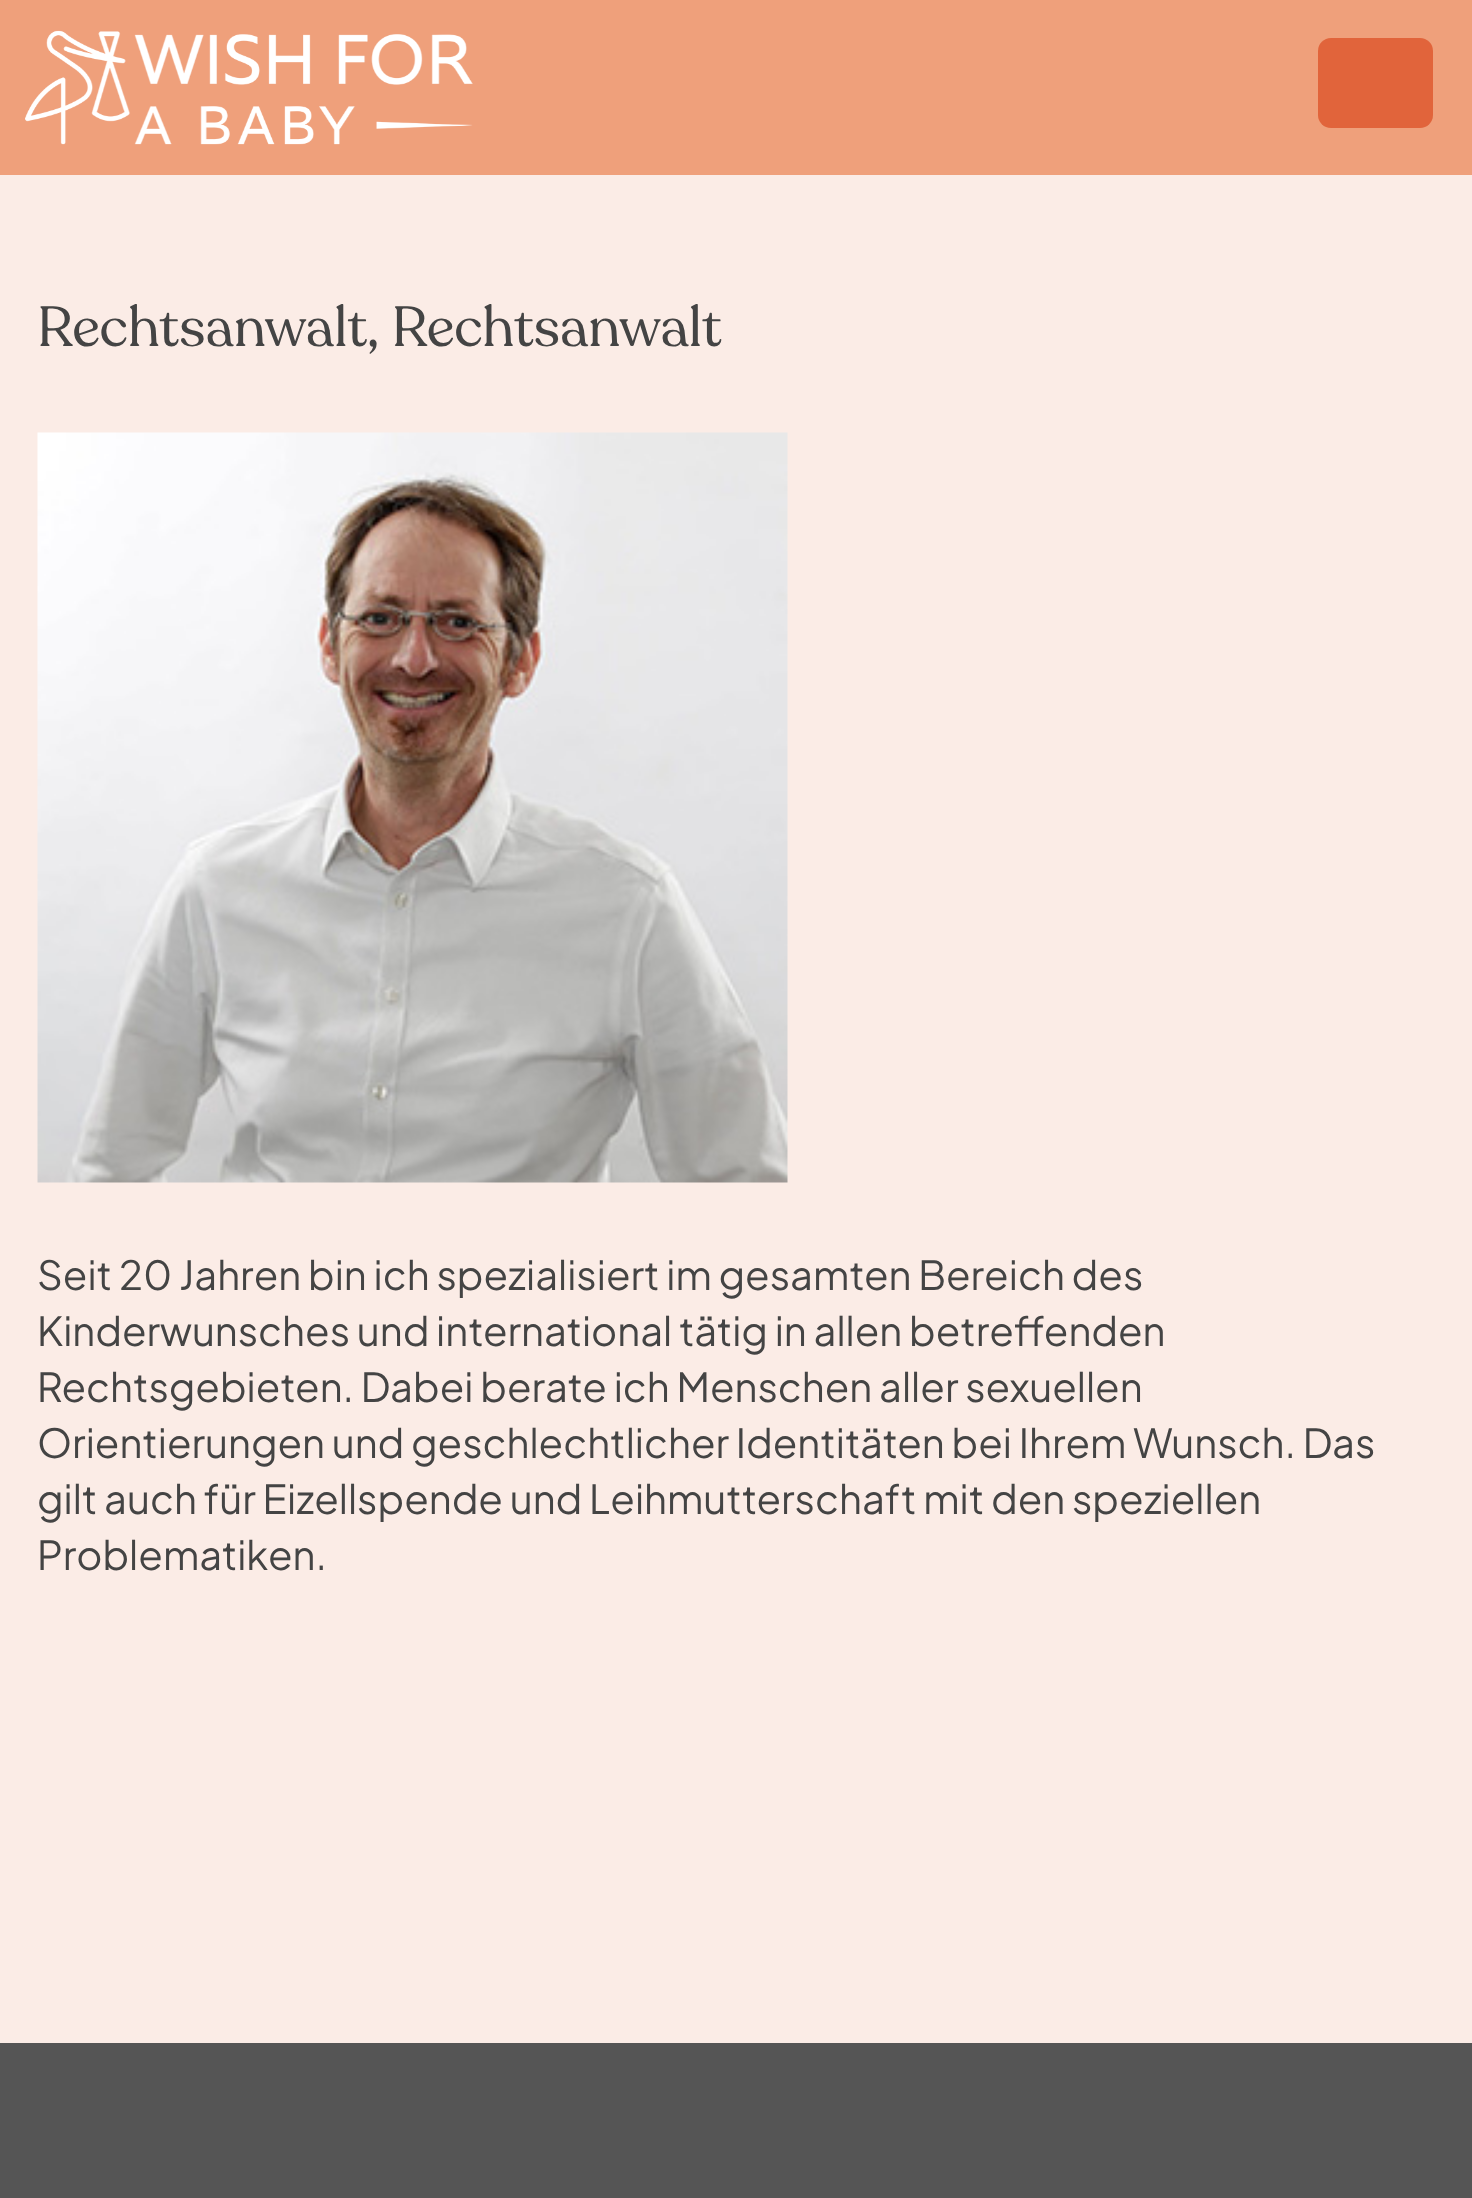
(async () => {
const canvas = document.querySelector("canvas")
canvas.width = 1472
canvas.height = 2198
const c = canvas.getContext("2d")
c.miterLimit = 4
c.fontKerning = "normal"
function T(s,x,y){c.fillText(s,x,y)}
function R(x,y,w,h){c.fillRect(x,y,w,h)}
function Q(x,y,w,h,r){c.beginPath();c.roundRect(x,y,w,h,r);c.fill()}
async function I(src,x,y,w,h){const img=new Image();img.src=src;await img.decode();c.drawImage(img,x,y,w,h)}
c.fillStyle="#fbece6"
R(0,0,1472,2198)
c.fillStyle="#efa07b"
R(0,0,1472,175)
await I("1.png",25,30,448,115)
c.fillStyle="#e1643b"
Q(1318,38,115,90,13)
c.font="56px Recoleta"
c.fillStyle="#444"
T("Rechtsanwalt, Rechtsanwalt",37,346)
await I("2.png",37,432,751,751)
c.font="40px Plus Jakarta Sans"
T("Seit 20 Jahren bin ich spezialisiert im gesamten Bereich des",37,1290)
T("Kinderwunsches und international tätig in allen betreffenden",37,1346)
T("Rechtsgebieten. Dabei berate ich Menschen aller sexuellen",37,1402)
T("Orientierungen und geschlechtlicher Identitäten bei Ihrem Wunsch. Das",37,1458)
T("gilt auch für Eizellspende und Leihmutterschaft mit den speziellen",37,1514)
T("Problematiken.",37,1570)
c.fillStyle="#555"
R(0,2043,1472,155)
})()
